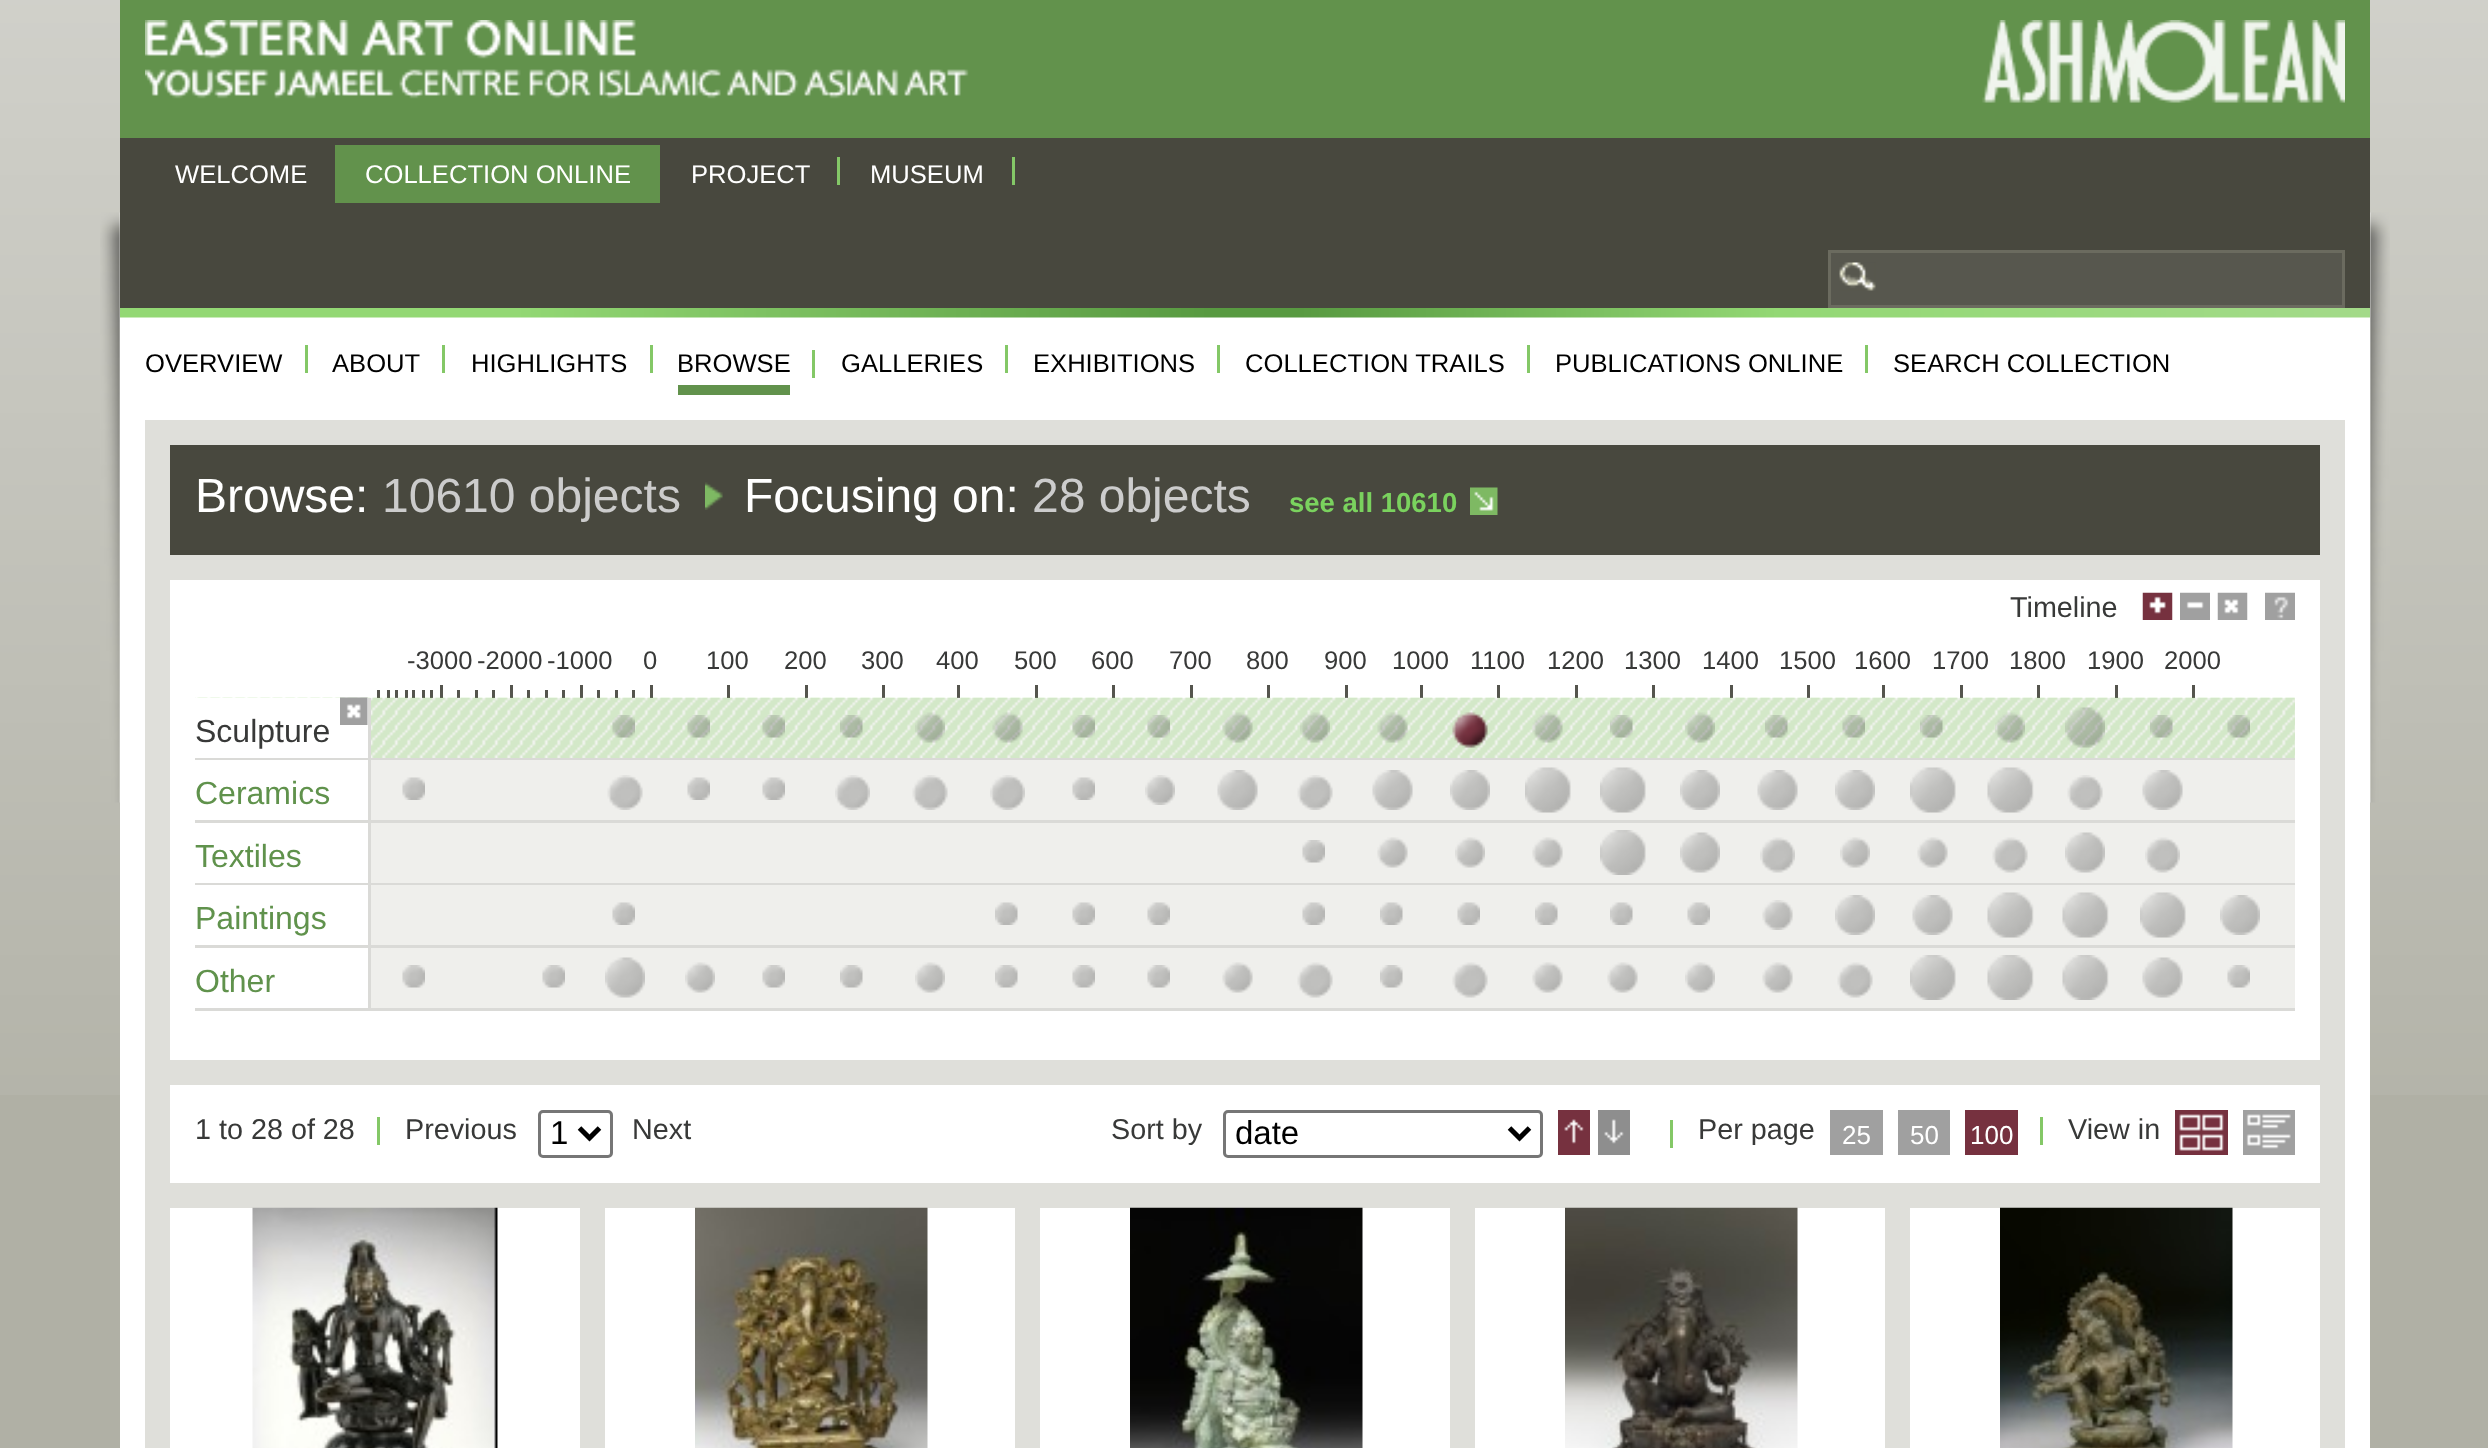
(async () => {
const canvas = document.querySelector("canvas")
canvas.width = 2488
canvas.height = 1448
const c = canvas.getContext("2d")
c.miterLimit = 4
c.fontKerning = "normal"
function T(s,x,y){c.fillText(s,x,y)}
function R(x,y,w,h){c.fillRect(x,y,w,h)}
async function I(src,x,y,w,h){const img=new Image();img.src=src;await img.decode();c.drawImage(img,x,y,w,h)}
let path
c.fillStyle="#b0b0a5"
R(0,0,2488,1448)
await I("1.png",0,0,2488,1095)
await I("2.png",100,212,2290,591)
c.fillStyle="#62924c"
R(120,0,2250,138)
await I("3.png",145,20,824,79)
await I("4.png",1982,20,363,83)
c.fillStyle="#48483e"
R(120,138,2250,170)
c.font="25.6px Liberation Sans"
c.fillStyle="#fff"
T("WELCOME",175,183)
c.fillStyle="#62924c"
R(335,145,325,58)
c.fillStyle="#fff"
T("COLLECTION ONLINE",365,183)
c.fillStyle="#84c867"
R(837,157,3,28)
c.fillStyle="#fff"
T("PROJECT",691,183)
c.fillStyle="#84c867"
R(1012,157,3,28)
c.fillStyle="#fff"
T("MUSEUM",870,183)
c.fillStyle="#57574e"
R(1831,253,511,52)
await I("5.png",1839,262,37,29)
c.strokeStyle="#6b6b5f"
c.lineWidth=3
c.strokeRect(1829.5,251.5,514,55)
c.fillStyle="#fff"
R(120,317,2250,1131)
await I("6.png",120,308,2250,10)
c.fillStyle="#84c867"
R(305,345,3,28)
c.fillStyle="#000"
T("OVERVIEW",145,372)
c.fillStyle="#84c867"
R(442,345,3,28)
c.fillStyle="#000"
T("ABOUT",332,372)
c.fillStyle="#84c867"
R(650,345,3,28)
c.fillStyle="#000"
T("HIGHLIGHTS",471,372)
c.fillStyle="#84c867"
R(812,350,3,28)
c.fillStyle="#62924c"
R(678,385,112,10)
c.fillStyle="#000"
T("BROWSE",677,372)
c.fillStyle="#84c867"
R(1005,345,3,28)
c.fillStyle="#000"
T("GALLERIES",841,372)
c.fillStyle="#84c867"
R(1217,345,3,28)
c.fillStyle="#000"
T("EXHIBITIONS",1033,372)
c.fillStyle="#84c867"
R(1527,345,3,28)
c.fillStyle="#000"
T("COLLECTION TRAILS",1245,372)
c.fillStyle="#84c867"
R(1865,345,3,28)
c.fillStyle="#000"
T("PUBLICATIONS ONLINE",1555,372)
T("SEARCH COLLECTION",1893,372)
c.fillStyle="#dfdfda"
R(145,420,2200,1028)
c.fillStyle="#48483e"
R(170,445,2150,110)
c.font="48px Liberation Sans"
c.fillStyle="#fff"
T("Browse:",195,512)
c.fillStyle="#ccc"
T("10610 objects",382,512)
await I("7.png",705,482,18,28)
c.fillStyle="#fff"
T("Focusing on:",744,512)
c.fillStyle="#ccc"
T("28 objects",1032,512)
c.font="bold 27.5px Liberation Sans"
c.fillStyle="#7ad25e"
T("see all 10610",1289,512)
await I("8.png",1470,487,28,28)
c.fillStyle="#fff"
R(170,580,2150,480)
c.font="28.75px Liberation Sans"
c.fillStyle="#383938"
T("Timeline",2010,617)
await I("9.png",2142,592,31,28)
await I("10.png",2180,592,30,28)
await I("11.png",2217,592,31,28)
await I("12.png",2265,592,30,28)
c.fillStyle="#55554e"
R(440,685,3,13)
c.font="25.6px Liberation Sans"
c.fillStyle="#383938"
T("-3000",407,669)
c.fillStyle="#55554e"
R(510,685,3,13)
c.fillStyle="#383938"
T("-2000",477,669)
c.fillStyle="#55554e"
R(580,685,3,13)
c.fillStyle="#383938"
T("-1000",547,669)
c.fillStyle="#55554e"
R(650,685,3,13)
c.fillStyle="#383938"
T("0",643,669)
c.fillStyle="#55554e"
R(727,685,3,13)
c.fillStyle="#383938"
T("100",706,669)
c.fillStyle="#55554e"
R(805,685,3,13)
c.fillStyle="#383938"
T("200",784,669)
c.fillStyle="#55554e"
R(882,685,3,13)
c.fillStyle="#383938"
T("300",861,669)
c.fillStyle="#55554e"
R(957,685,3,13)
c.fillStyle="#383938"
T("400",936,669)
c.fillStyle="#55554e"
R(1035,685,3,13)
c.fillStyle="#383938"
T("500",1014,669)
c.fillStyle="#55554e"
R(1112,685,3,13)
c.fillStyle="#383938"
T("600",1091,669)
c.fillStyle="#55554e"
R(1190,685,3,13)
c.fillStyle="#383938"
T("700",1169,669)
c.fillStyle="#55554e"
R(1267,685,3,13)
c.fillStyle="#383938"
T("800",1246,669)
c.fillStyle="#55554e"
R(1345,685,3,13)
c.fillStyle="#383938"
T("900",1324,669)
c.fillStyle="#55554e"
R(1420,685,3,13)
c.fillStyle="#383938"
T("1000",1392,669)
c.fillStyle="#55554e"
R(1497,685,3,13)
c.fillStyle="#383938"
T("1100",1470,669)
c.fillStyle="#55554e"
R(1575,685,3,13)
c.fillStyle="#383938"
T("1200",1547,669)
c.fillStyle="#55554e"
R(1652,685,3,13)
c.fillStyle="#383938"
T("1300",1624,669)
c.fillStyle="#55554e"
R(1730,685,3,13)
c.fillStyle="#383938"
T("1400",1702,669)
c.fillStyle="#55554e"
R(1807,685,3,13)
c.fillStyle="#383938"
T("1500",1779,669)
c.fillStyle="#55554e"
R(1882,685,3,13)
c.fillStyle="#383938"
T("1600",1854,669)
c.fillStyle="#55554e"
R(1960,685,3,13)
c.fillStyle="#383938"
T("1700",1932,669)
c.fillStyle="#55554e"
R(2037,685,3,13)
c.fillStyle="#383938"
T("1800",2009,669)
c.fillStyle="#55554e"
R(2115,685,3,13)
c.fillStyle="#383938"
T("1900",2087,669)
c.fillStyle="#55554e"
R(2192,685,3,13)
c.fillStyle="#383938"
T("2000",2164,669)
c.fillStyle="#55554e"
R(377,690,3,8)
R(387,690,3,8)
R(395,690,3,8)
R(405,690,3,8)
R(412,690,3,8)
R(422,690,3,8)
R(430,690,3,8)
R(457,690,3,8)
R(475,690,3,8)
R(492,690,3,8)
R(527,690,3,8)
R(545,690,3,8)
R(562,690,3,8)
R(597,690,3,8)
R(615,690,3,8)
R(632,690,3,8)
c.fillStyle="#efefec"
R(371,698,1924,60)
await I("13.png",195,697,2100,61)
c.fillStyle="#dadad7"
R(195,758,2100,2)
c.fillStyle="#fff"
R(195,698,173,60)
await I("14.png",340,697,28,28)
c.font="32px Liberation Sans"
c.fillStyle="#383938"
T("Sculpture",195,742)
c.fillStyle="#dadad7"
R(368,698,3,60)
await I("15.png",612,715,23,23)
await I("15.png",687,715,23,23)
await I("15.png",762,715,23,23)
await I("16.png",840,715,23,23)
await I("17.png",915,712,30,31)
await I("18.png",992,712,31,31)
await I("19.png",1072,715,23,23)
await I("20.png",1147,715,23,23)
await I("21.png",1222,712,31,31)
await I("22.png",1300,712,30,31)
await I("23.png",1377,712,31,31)
await I("24.png",1452,712,36,36)
await I("25.png",1532,712,31,31)
await I("26.png",1610,715,23,23)
await I("27.png",1685,712,30,31)
await I("28.png",1765,715,23,23)
await I("29.png",1842,715,23,23)
await I("30.png",1920,715,23,23)
await I("31.png",1995,712,30,31)
await I("32.png",2065,707,40,41)
await I("33.png",2150,715,23,23)
await I("34.png",2227,715,23,23)
c.fillStyle="#efefec"
R(371,760,1924,60)
c.fillStyle="#dadad7"
R(195,820,2100,3)
c.fillStyle="#60924c"
T("Ceramics",195,804)
c.fillStyle="#dadad7"
R(368,760,3,60)
await I("35.png",402,777,23,23)
await I("36.png",607,775,36,35)
await I("37.png",687,777,23,23)
await I("37.png",762,777,23,23)
await I("38.png",835,775,35,35)
await I("36.png",912,775,36,35)
await I("39.png",990,775,35,35)
await I("35.png",1072,777,23,23)
await I("40.png",1145,775,30,30)
await I("41.png",1217,770,41,40)
await I("36.png",1297,775,36,35)
await I("41.png",1372,770,41,40)
await I("42.png",1450,770,40,40)
await I("43.png",1525,767,46,46)
await I("43.png",1600,767,46,46)
await I("42.png",1680,770,40,40)
await I("44.png",1757,770,41,40)
await I("45.png",1835,770,40,40)
await I("43.png",1910,767,46,46)
await I("46.png",1987,767,47,46)
await I("36.png",2067,775,36,35)
await I("41.png",2142,770,41,40)
c.fillStyle="#efefec"
R(371,823,1924,60)
c.fillStyle="#dadad7"
R(195,883,2100,2)
c.fillStyle="#60924c"
T("Textiles",195,867)
c.fillStyle="#dadad7"
R(368,823,3,60)
await I("47.png",1302,840,23,23)
await I("48.png",1377,837,31,31)
await I("49.png",1455,837,30,31)
await I("50.png",1532,837,31,31)
await I("51.png",1600,830,46,45)
await I("52.png",1680,832,40,41)
await I("53.png",1760,837,35,36)
await I("54.png",1840,837,30,31)
await I("48.png",1917,837,31,31)
await I("55.png",1992,837,36,36)
await I("52.png",2065,832,40,41)
await I("56.png",2145,837,35,36)
c.fillStyle="#efefec"
R(371,885,1924,60)
c.fillStyle="#dadad7"
R(195,945,2100,3)
c.fillStyle="#60924c"
T("Paintings",195,929)
c.fillStyle="#dadad7"
R(368,885,3,60)
await I("57.png",612,902,23,23)
await I("58.png",995,902,23,23)
await I("59.png",1072,902,23,23)
await I("59.png",1147,902,23,23)
await I("57.png",1302,902,23,23)
await I("60.png",1380,902,23,23)
await I("57.png",1457,902,23,23)
await I("58.png",1535,902,23,23)
await I("60.png",1610,902,23,23)
await I("57.png",1687,902,23,23)
await I("61.png",1762,900,31,30)
await I("45.png",1835,895,40,40)
await I("41.png",1912,895,41,40)
await I("46.png",1987,892,47,46)
await I("46.png",2062,892,47,46)
await I("43.png",2140,892,46,46)
await I("45.png",2220,895,40,40)
c.fillStyle="#efefec"
R(371,948,1924,60)
c.fillStyle="#dadad7"
R(195,1008,2100,3)
c.fillStyle="#60924c"
T("Other",195,992)
c.fillStyle="#dadad7"
R(368,948,3,60)
await I("62.png",402,965,23,23)
await I("62.png",542,965,23,23)
await I("52.png",605,957,40,41)
await I("54.png",685,962,30,31)
await I("47.png",762,965,23,23)
await I("63.png",840,965,23,23)
await I("49.png",915,962,30,31)
await I("63.png",995,965,23,23)
await I("62.png",1072,965,23,23)
await I("62.png",1147,965,23,23)
await I("48.png",1222,962,31,31)
await I("55.png",1297,962,36,36)
await I("64.png",1380,965,23,23)
await I("55.png",1452,962,36,36)
await I("50.png",1532,962,31,31)
await I("65.png",1607,962,31,31)
await I("54.png",1685,962,30,31)
await I("48.png",1762,962,31,31)
await I("66.png",1837,962,36,36)
await I("51.png",1910,955,46,45)
await I("67.png",1987,955,47,45)
await I("67.png",2062,955,47,45)
await I("68.png",2142,957,41,41)
await I("62.png",2227,965,23,23)
c.fillStyle="#fff"
R(170,1085,2150,98)
c.fillStyle="#84c867"
R(377,1117,3,28)
c.font="28.75px Liberation Sans"
c.fillStyle="#383938"
T("1 to 28 of 28",195,1139)
T("Previous",405,1139)
c.beginPath()
c.roundRect(539.5,1111.5,72,45,3.5)
c.strokeStyle="#767676"
c.stroke()
path = new Path2D("M579.5 1128l10 10l10-10")
c.strokeStyle="#000"
c.lineWidth=5
c.stroke(path)
c.font="33px Liberation Sans"
c.fillStyle="#000"
T("1",550,1144)
c.font="28.75px Liberation Sans"
c.fillStyle="#383938"
T("Next",632,1139)
c.fillStyle="#84c867"
R(1670,1120,3,28)
c.fillStyle="#383938"
T("Sort by",1111,1139)
c.beginPath()
c.roundRect(1224.5,1111.5,317,45,3.5)
c.strokeStyle="#767676"
c.lineWidth=3
c.stroke()
path = new Path2D("M1509.5 1128l10 10l10-10")
c.strokeStyle="#000"
c.lineWidth=5
c.stroke(path)
c.font="33px Liberation Sans"
c.fillStyle="#000"
T("date",1235,1144)
c.fillStyle="#76313f"
R(1558,1110,32,45)
await I("69.png",1564,1119,20,25)
c.fillStyle="#8e8e8e"
R(1598,1110,32,45)
await I("70.png",1604,1119,20,25)
c.fillStyle="#84c867"
R(2040,1117,3,28)
c.font="28.75px Liberation Sans"
c.fillStyle="#383938"
T("Per page",1698,1139)
c.fillStyle="#a0a0a0"
R(1830,1110,53,45)
c.font="26px Liberation Sans"
c.fillStyle="#fff"
T("25",1842,1144)
c.fillStyle="#a0a0a0"
R(1898,1110,52,45)
c.fillStyle="#fff"
T("50",1910,1144)
c.fillStyle="#76313f"
R(1965,1110,53,45)
c.fillStyle="#fff"
T("100",1970,1144)
c.font="28.75px Liberation Sans"
c.fillStyle="#383938"
T("View in",2068,1139)
c.fillStyle="#76313f"
R(2175,1110,53,45)
await I("71.png",2179,1114,45,37)
c.fillStyle="#a0a0a0"
R(2243,1110,52,45)
await I("72.png",2246,1114,45,35)
c.fillStyle="#fff"
R(170,1208,410,240)
await I("73.png",252,1207,246,241)
R(605,1208,410,240)
await I("74.png",695,1207,233,241)
R(1040,1208,410,240)
await I("75.png",1130,1207,233,241)
R(1475,1208,410,240)
await I("76.png",1565,1207,233,241)
R(1910,1208,410,240)
await I("77.png",2000,1207,233,241)
})()
